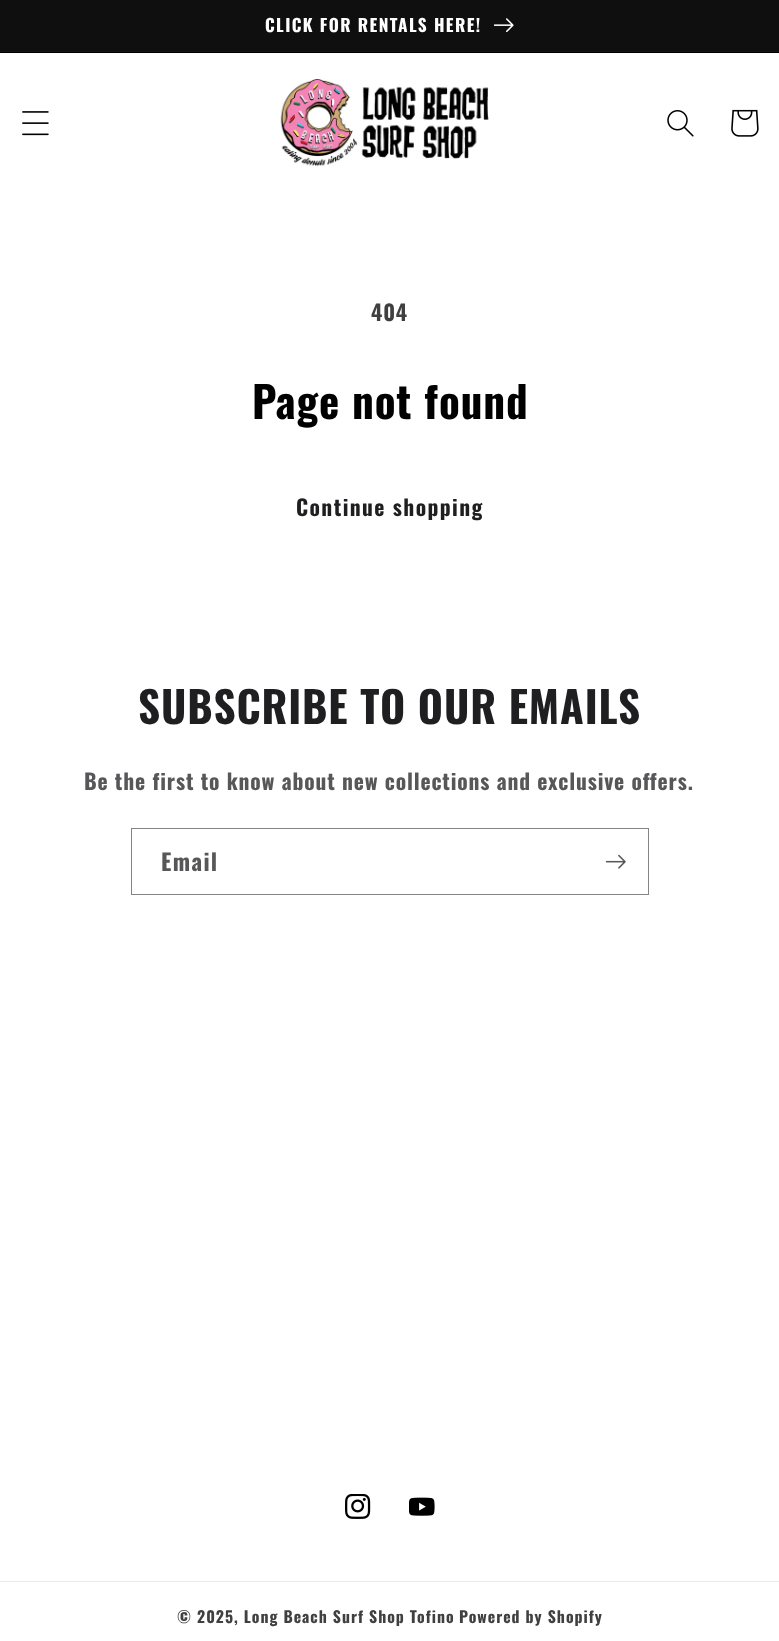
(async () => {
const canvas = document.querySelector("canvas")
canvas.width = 779
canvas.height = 1641
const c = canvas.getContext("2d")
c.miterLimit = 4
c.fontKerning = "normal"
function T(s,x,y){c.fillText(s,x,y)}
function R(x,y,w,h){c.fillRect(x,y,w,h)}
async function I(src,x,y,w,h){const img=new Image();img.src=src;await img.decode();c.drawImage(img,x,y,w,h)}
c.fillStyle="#fff"
R(0,0,779,1641)
c.fillStyle="#000"
R(0,52,779,1)
c.fillStyle="#141414"
R(0,51,779,1)
c.fillStyle="#0f0f0f"
R(0,0,779,51)
c.letterSpacing="1.4px"
c.font="bold 17.25px Oswald"
c.fillStyle="#fff"
T("CLICK FOR RENTALS HERE!",265,32)
await I("1.png",494,18,20,15)
await I("2.png",22,111,27,25)
await I("3.png",280,79,209,87)
await I("4.png",667,110,27,27)
await I("5.png",731,109,28,28)
c.letterSpacing="0.85px"
c.font="bold 21.55px Oswald"
c.fillStyle="#404040"
T("404",371,321)
c.font="bold 43.1px Oswald"
c.fillStyle="#000"
T("Page not found",252,419)
c.letterSpacing="1.4px"
c.font="bold 21.55px Oswald"
c.fillStyle="#1f1f21"
T("Continue shopping",296,516)
c.letterSpacing="0.85px"
c.font="bold 43.1px Oswald"
T("SUBSCRIBE TO OUR EMAILS",138,724)
c.font="bold 21.55px Oswald"
c.fillStyle="#575759"
T("Be the first to know about new collections and exclusive offers.",84,790)
c.strokeStyle="#848485"
c.strokeRect(131.5,828.5,517,66)
c.letterSpacing="1.4px"
c.font="bold 23px Oswald"
T("Email",161,871)
await I("6.png",605,854,21,15)
await I("7.png",345,1494,26,25)
await I("8.png",409,1497,26,19)
c.fillStyle="#ebebeb"
R(0,1581,779,1)
c.letterSpacing="1px"
c.font="bold 15.8px Oswald"
c.fillStyle="#404040"
T("© 2025, Long Beach Surf Shop Tofino",177,1623)
T("Powered by Shopify",459,1623)
})()
